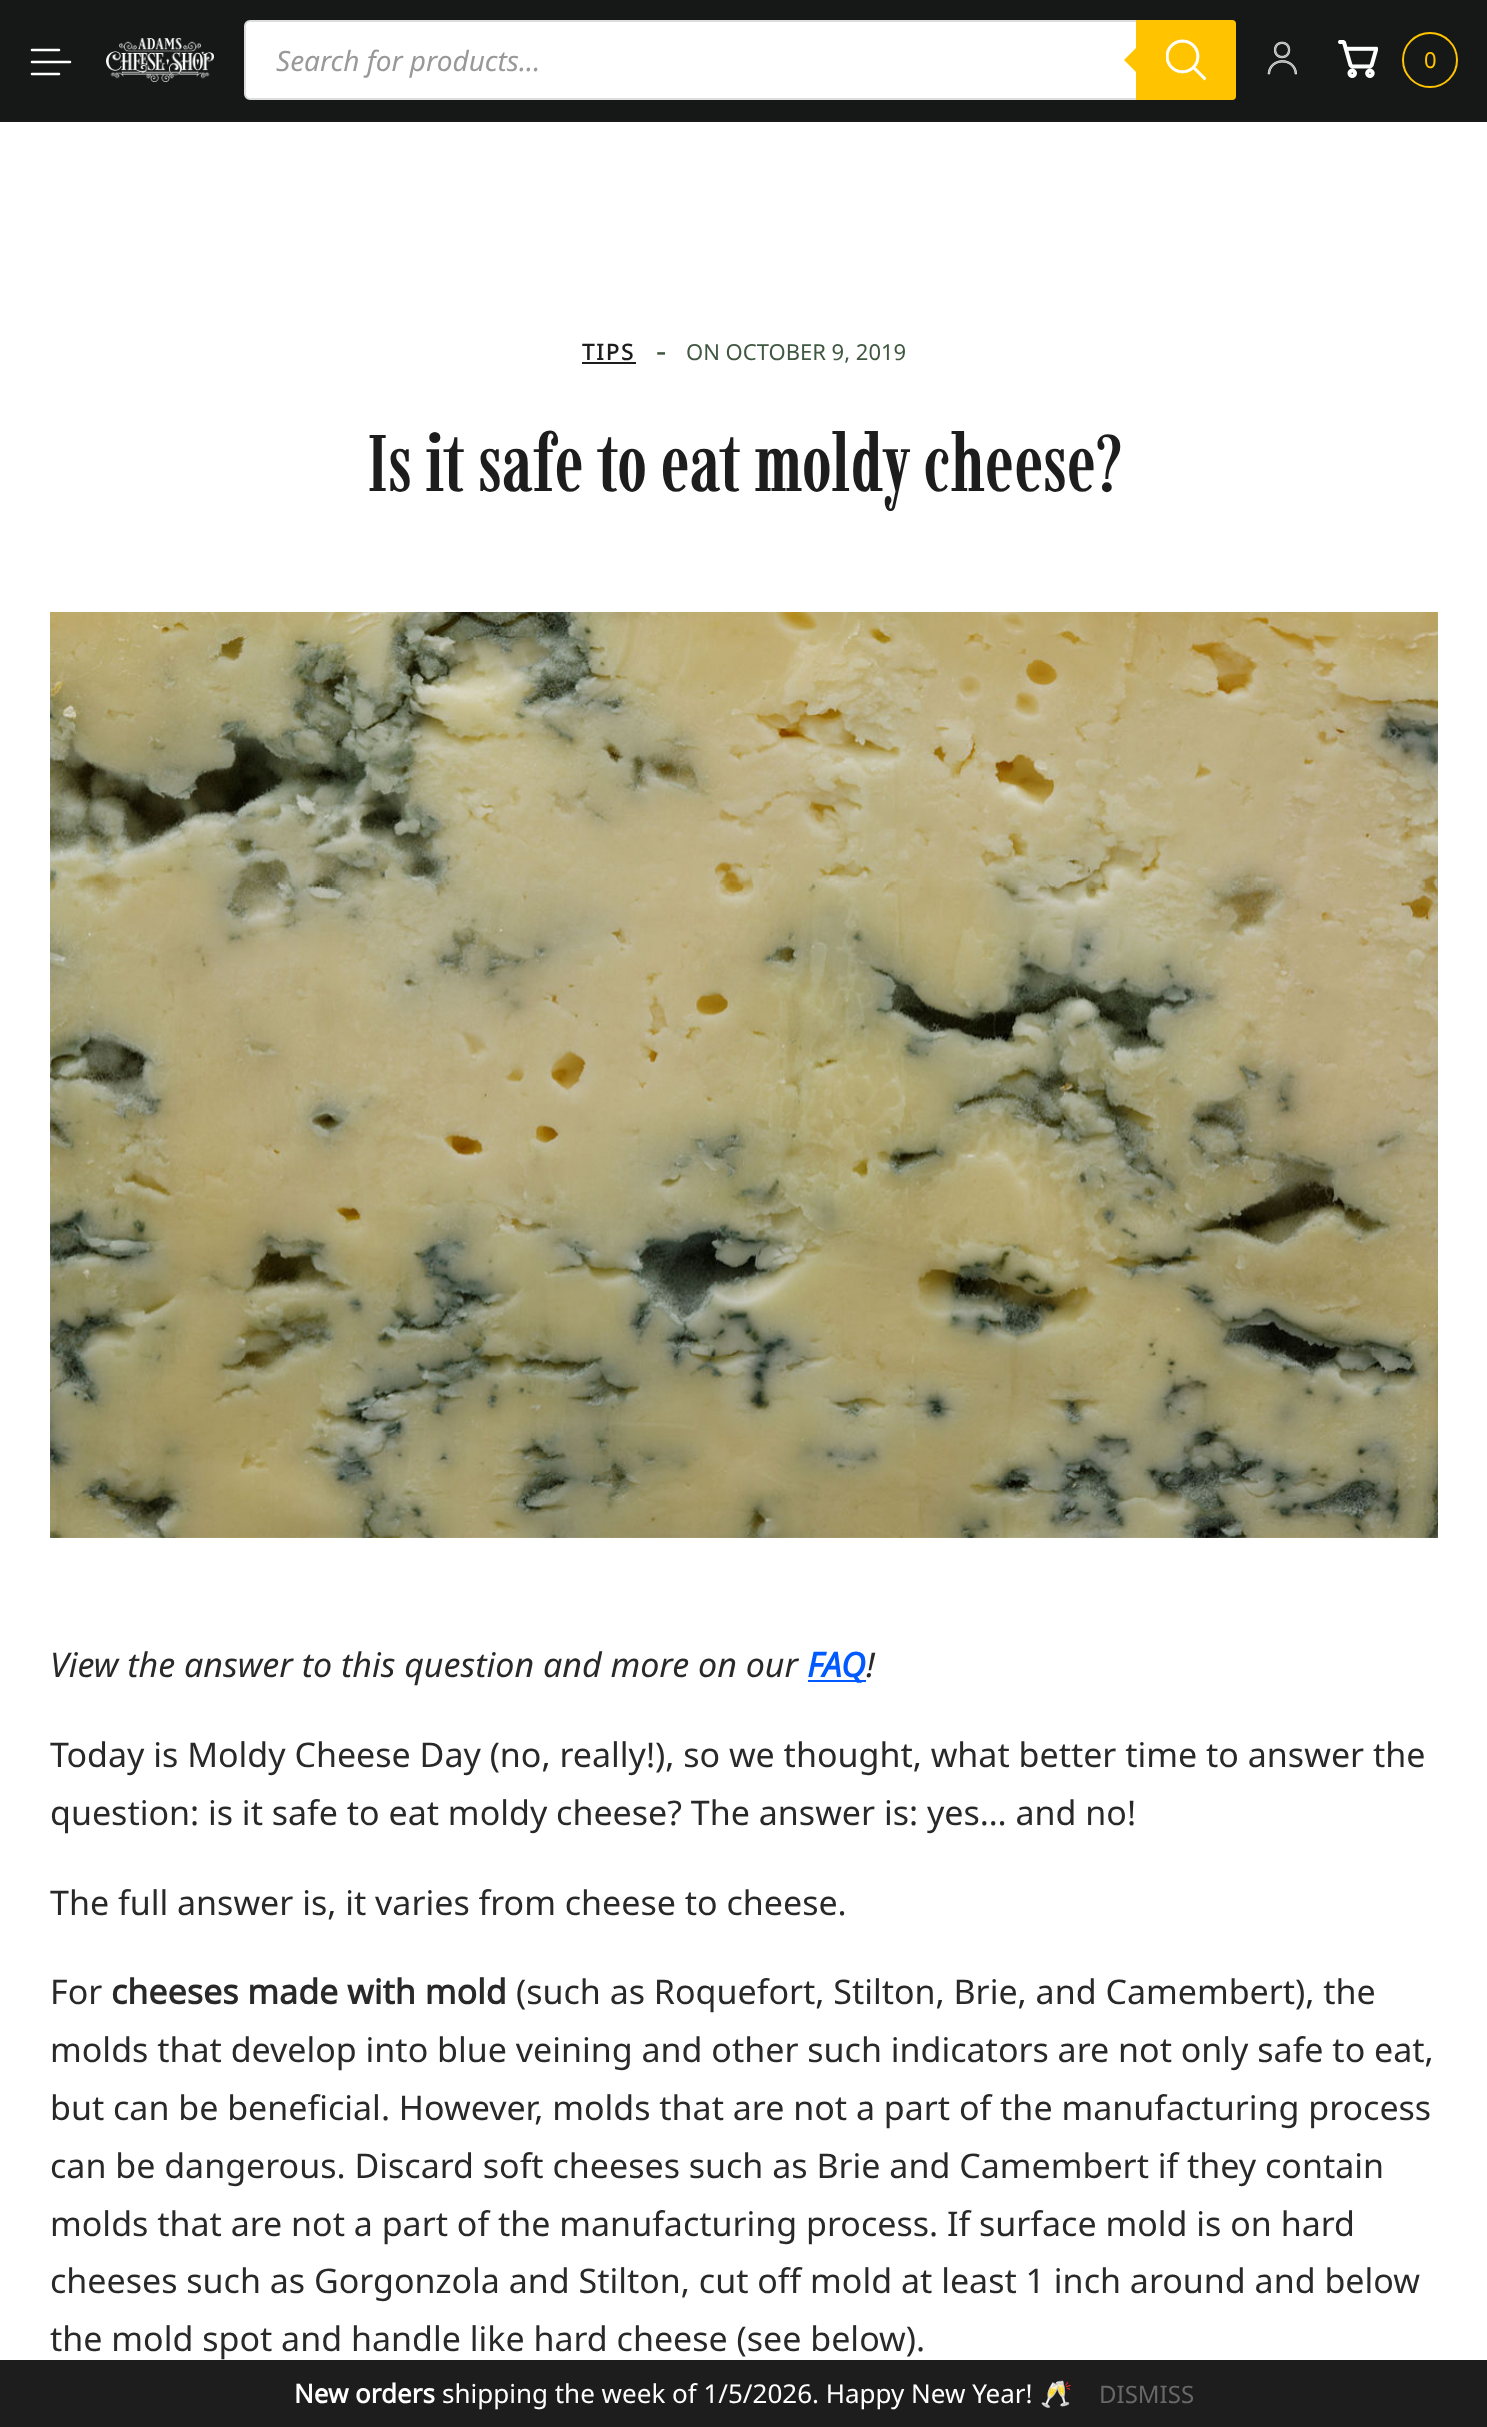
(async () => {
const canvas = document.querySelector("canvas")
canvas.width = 1487
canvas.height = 2427
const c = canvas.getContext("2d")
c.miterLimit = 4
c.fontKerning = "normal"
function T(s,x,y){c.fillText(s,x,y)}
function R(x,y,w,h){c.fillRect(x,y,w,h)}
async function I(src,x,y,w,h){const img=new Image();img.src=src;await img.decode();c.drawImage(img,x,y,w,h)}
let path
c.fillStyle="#fff"
R(0,0,1487,2427)
c.fillStyle="#161817"
R(0,0,1487,120)
c.fillStyle="#191b1a"
R(0,120,1487,2)
path = new Path2D("M70 62h-38m27-12h-27m27 24h-27")
c.strokeStyle="#fff"
c.lineWidth=2.6
c.lineCap="round"
c.lineJoin="round"
c.stroke(path)
await I("1.png",106,38,108,44)
c.fillStyle="#fff"
c.beginPath()
c.roundRect(245,21,990,78,5)
c.fill()
c.strokeStyle="#ddd"
c.lineWidth=2
c.lineJoin="miter"
c.stroke()
c.font="italic 28px Noto Sans"
c.fillStyle="#999"
T("Search for products...",276,71)
c.fillStyle="#ffc300"
c.beginPath()
c.roundRect(1136,20,100,80,[0,4,4,0])
c.fill()
path = new Path2D("M1140 44v32l-16-16z")
c.fill(path)
await I("2.png",1166,39,40,42)
await I("3.png",1267,41,30,34)
await I("4.png",1338,40,40,38)
c.beginPath()
c.arc(1430,60,27,0,7)
c.strokeStyle="#ffc300"
c.stroke()
c.font="22px Noto Sans"
T("0",1424,68)
c.letterSpacing="2px"
c.font="bold 22px Noto Sans"
c.fillStyle="#1d1d1d"
T("TIPS",582,360)
R(582,362,54,2)
c.letterSpacing="0px"
c.font="32px Noto Sans"
c.fillStyle="#405841"
T("-",656,362)
c.font="22px Noto Sans"
T("ON OCTOBER 9, 2019",686,360)
c.font="600 80px Imbue"
c.fillStyle="#1d1d1d"
T("Is it safe to eat moldy cheese?",367,491)
await I("5.png",50,612,1388,926)
c.font="italic 34px Noto Sans"
c.fillStyle="#292929"
T("View the answer to this question and more on our",50,1677)
c.fillStyle="#005aff"
R(808,1680,58,2)
c.font="italic bold 34px Noto Sans"
T("FAQ",807,1677)
c.font="italic 34px Noto Sans"
c.fillStyle="#292929"
T("!",866,1677)
c.font="34px Noto Sans"
T("Today is Moldy Cheese Day (no, really!), so we thought, what better time to answer the",50,1767)
T("question: is it safe to eat moldy cheese? The answer is: yes… and no!",50,1825)
T("The full answer is, it varies from cheese to cheese.",50,1915)
T("For",50,2004)
c.font="bold 34px Noto Sans"
T("cheeses made with mold",111,2004)
c.font="34px Noto Sans"
T("(such as Roquefort, Stilton, Brie, and Camembert), the",516,2004)
T("molds that develop into blue veining and other such indicators are not only safe to eat,",50,2062)
T("but can be beneficial. However, molds that are not a part of the manufacturing process",50,2120)
T("can be dangerous. Discard soft cheeses such as Brie and Camembert if they contain",50,2178)
T("molds that are not a part of the manufacturing process. If surface mold is on hard",50,2236)
T("cheeses such as Gorgonzola and Stilton, cut off mold at least 1 inch around and below",50,2293)
T("the mold spot and handle like hard cheese (see below).",50,2351)
c.fillStyle="#1d1d1d"
R(0,2360,1487,67)
c.font="bold 26px Noto Sans"
c.fillStyle="#fff"
T("New orders",294,2403)
c.font="26px Noto Sans"
T("shipping the week of 1/5/2026. Happy New Year!",442,2403)
c.font="26px Noto Color Emoji"
T("🥂",1040,2403)
c.font="24px Noto Sans"
c.fillStyle="#686868"
T("DISMISS",1099,2403)
})()
